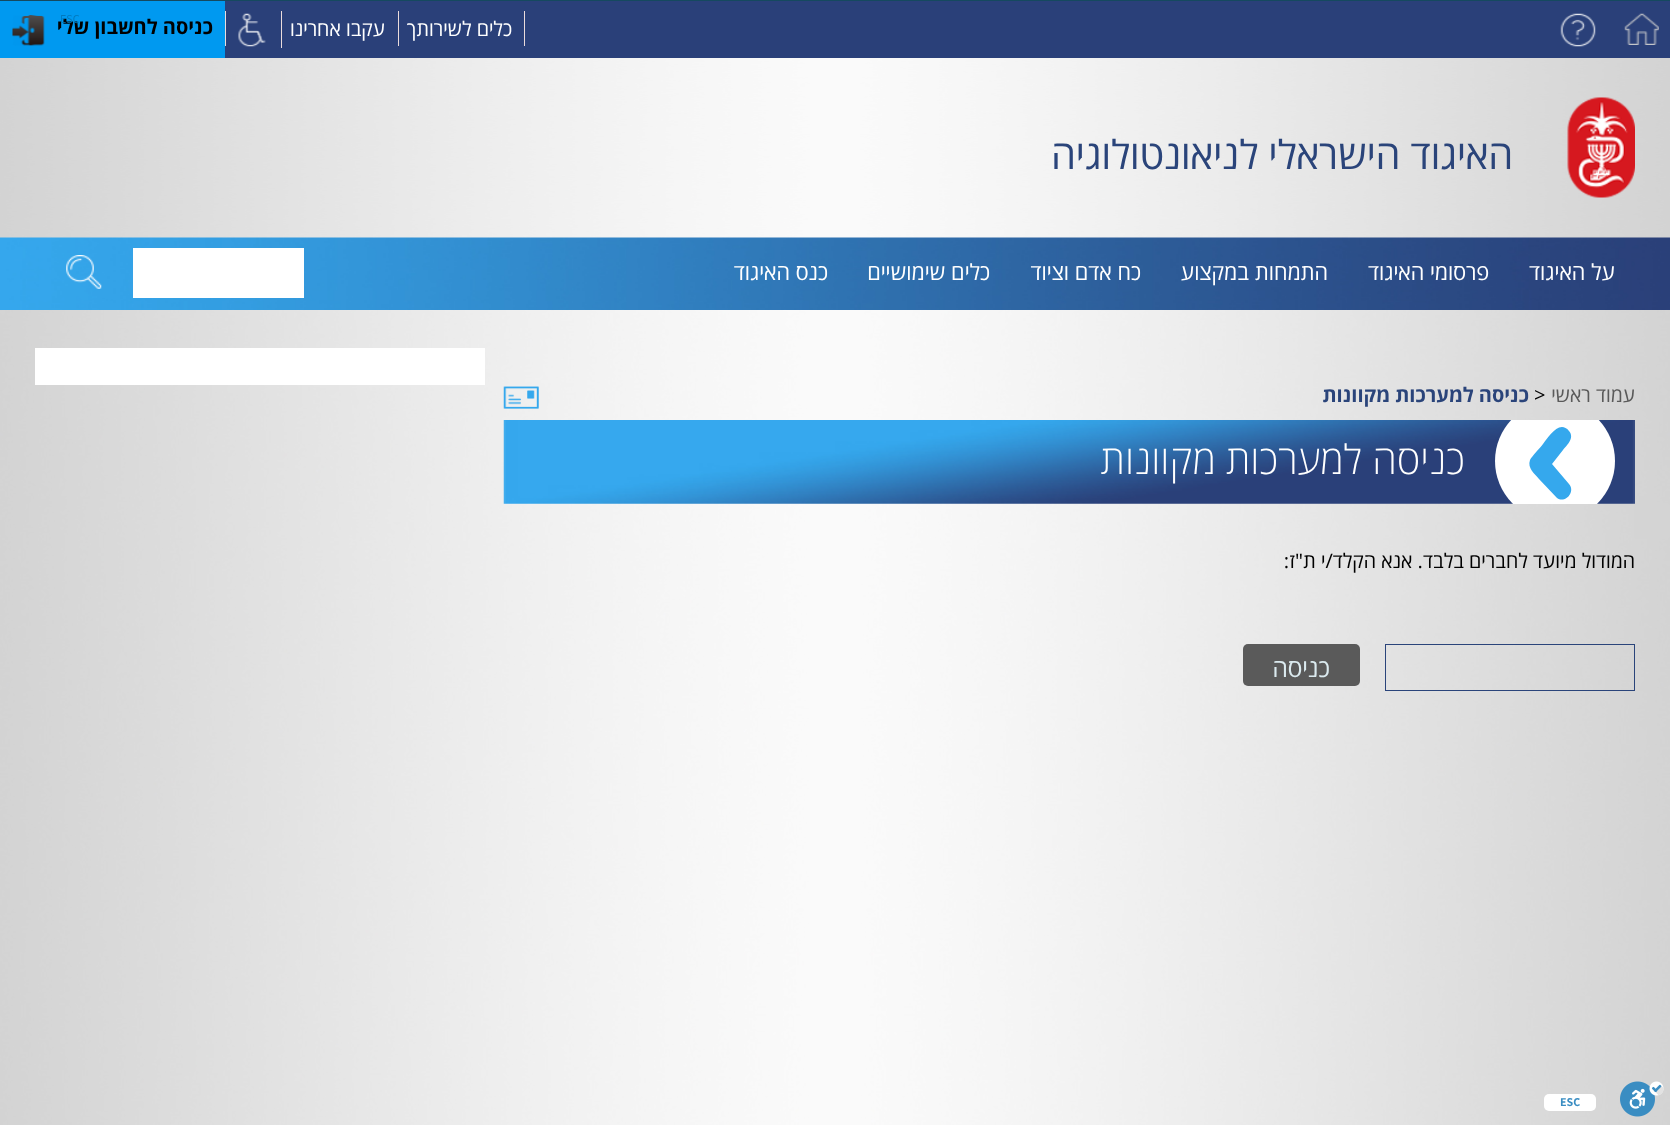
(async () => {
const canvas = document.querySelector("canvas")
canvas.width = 1670
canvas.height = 1125
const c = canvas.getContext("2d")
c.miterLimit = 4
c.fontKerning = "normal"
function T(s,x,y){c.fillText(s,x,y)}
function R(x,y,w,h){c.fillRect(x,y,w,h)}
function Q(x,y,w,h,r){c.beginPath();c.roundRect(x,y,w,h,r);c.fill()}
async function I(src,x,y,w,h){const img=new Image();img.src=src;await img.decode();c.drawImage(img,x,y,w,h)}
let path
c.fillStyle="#fff"
R(0,0,1670,1125)
await I("1.png",0,237,1670,888)
c.fillStyle="#15495f"
R(0,0,1670,1)
await I("12.png",503,420,1132,84)
c.fillStyle="#d4d4d4"
c.beginPath()
c.roundRect(1634.5,503.5,35,35,2)
c.fill()
c.strokeStyle="#d4d4d4"
c.stroke()
c.fillStyle="#0099f0"
R(0,1,225,57)
c.direction="rtl"
c.font="bold 20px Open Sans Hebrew"
c.fillStyle="#000"
T("כניסה לחשבון שלי",213,34)
c.direction="ltr"
c.font="12px Assistant"
c.fillStyle="#0079bd"
T("ESC",60,23)
await I("2.png",1620,1081,44,36)
c.fillStyle="#fff"
Q(1544,1094,52,17,5)
c.font="bold 12px Assistant"
c.fillStyle="#3a8dc2"
T("ESC",1560,1106)
c.fillStyle="#2a4079"
R(225,1,1445,57)
await I("3.png",1624,13,35,32)
await I("4.png",1560,13,36,34)
c.fillStyle="#eadcdc"
R(524,11,1,35)
c.direction="rtl"
c.font="20px Open Sans Hebrew"
c.fillStyle="#fff"
T("כלים לשירותך",512,36)
c.fillStyle="#eadcdc"
R(398,11,1,35)
c.fillStyle="#fff"
T("עקבו אחרינו",385,36)
await I("5.png",238,13,28,34)
c.fillStyle="#eadcdc"
R(281,11,1,37)
R(225,11,1,35)
await I("6.png",12,15,33,31)
await I("7.png",0,58,1670,180)
await I("8.png",1567,97,68,101)
c.font="40px Open Sans Hebrew"
c.fillStyle="#2a447a"
T("האיגוד הישראלי לניאונטולוגיה",1513,169)
await I("9.png",0,237,1670,73)
c.font="22px Open Sans Hebrew"
c.fillStyle="#fff"
T("על האיגוד",1615,280)
T("פרסומי האיגוד",1489,280)
T("התמחות במקצוע",1328,280)
T("כח אדם וציוד",1141,280)
T("כלים שימושיים",990,280)
T("כנס האיגוד",828,280)
R(133,248,171,50)
await I("10.png",66,255,36,34)
R(35,348,450,37)
c.font="20px Open Sans Hebrew"
c.fillStyle="#5a5a5a"
T("עמוד ראשי",1635,402)
c.direction="ltr"
c.fillStyle="#000"
T(">",1534,402)
c.direction="rtl"
c.font="bold 20px Open Sans Hebrew"
c.fillStyle="#2a447a"
T("כניסה למערכות מקוונות",1529,402)
await I("11.png",503,386,36,23)
c.save()
c.beginPath()
c.rect(504,420,1131,84)
c.clip()
c.fillStyle="#fff"
c.beginPath()
c.arc(1555,461,60,0,7)
c.fill()
c.restore()
c.fillStyle="#35a8ed"
path = new Path2D("M1569 484c7 8-4 20-12 14l-18-19c-4-5-12-11-9-19c2-4 10-12 13-16c5-6 16-25 26-13c6 7-2 14-6 19l-11 14z")
c.fill(path)
c.font="300 40px Open Sans Hebrew"
c.fillStyle="#fff"
T("כניסה למערכות מקוונות",1465,474)
c.font="20px Open Sans Hebrew"
c.fillStyle="#000"
T("המודול מיועד לחברים בלבד. אנא הקלד/י ת\"ז:",1635,568)
c.strokeStyle="#2a447a"
c.strokeRect(1385.5,644.5,249,46)
c.fillStyle="#5a5a5a"
Q(1243,644,117,42,5)
c.font="25px Open Sans Hebrew"
c.fillStyle="#dbeaef"
T("כניסה",1330,677)
})()
